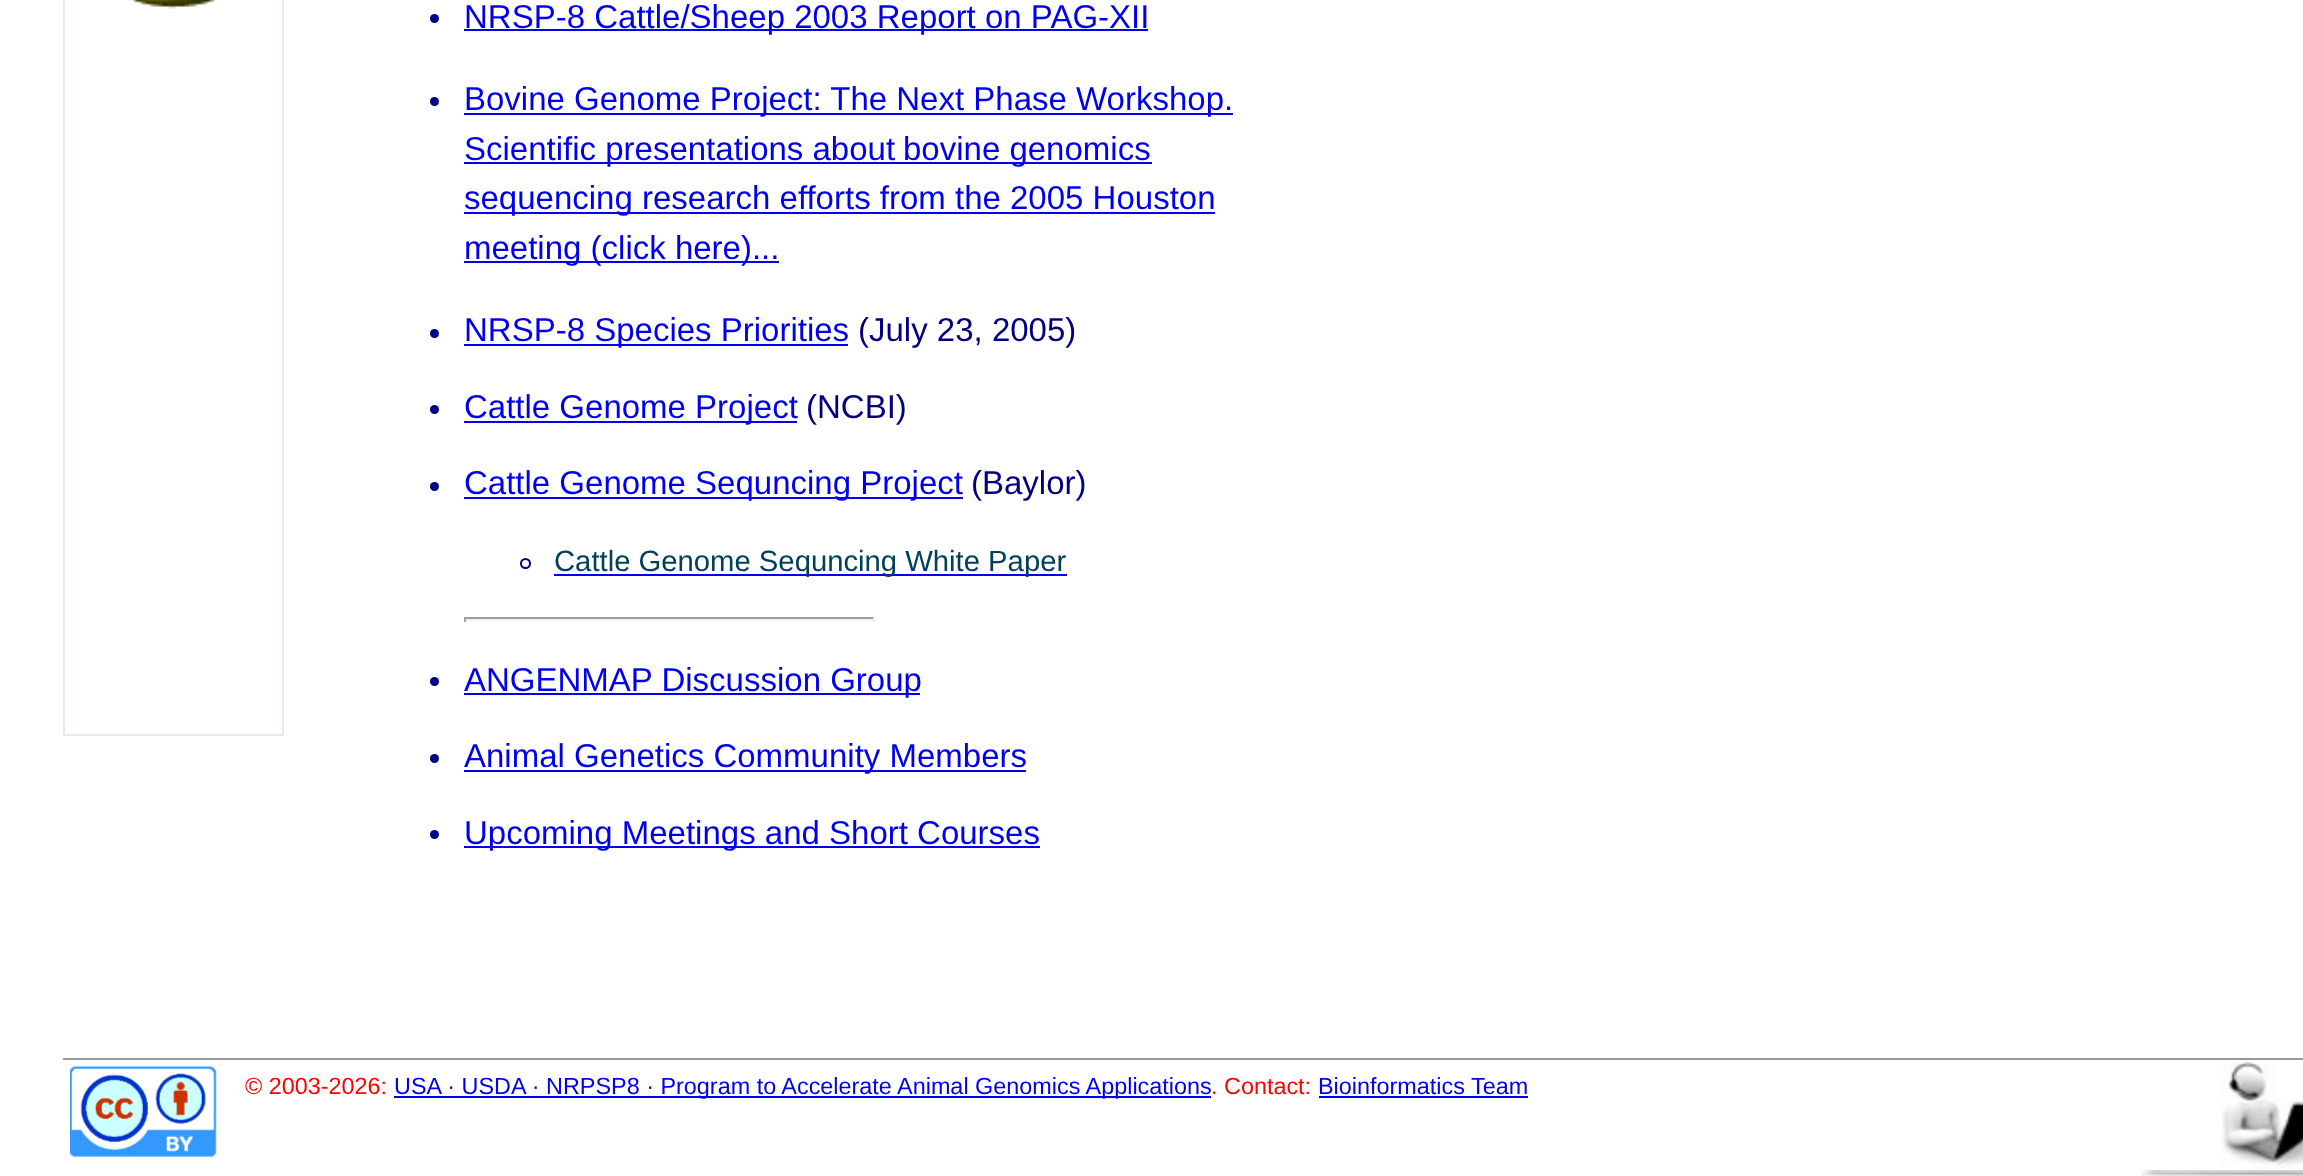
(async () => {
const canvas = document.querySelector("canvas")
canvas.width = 2303
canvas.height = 1176
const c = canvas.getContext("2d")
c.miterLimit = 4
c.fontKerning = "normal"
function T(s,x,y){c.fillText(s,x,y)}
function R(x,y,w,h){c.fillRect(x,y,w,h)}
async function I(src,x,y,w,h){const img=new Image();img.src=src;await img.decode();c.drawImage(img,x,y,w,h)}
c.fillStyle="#fff"
R(0,0,2303,1176)
c.strokeStyle="#dfefdf"
c.lineWidth=2
c.strokeRect(64,-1,219,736)
await I("1.png",128,0,90,9)
c.fillStyle="#000080"
c.beginPath()
c.arc(434.5,18.5,4.5,0,7)
c.fill()
c.fillStyle="#00e"
R(464,29,684,2)
c.font="33px Liberation Sans"
T("NRSP-8 Cattle/Sheep 2003 Report on PAG-XII",464,28)
c.fillStyle="#000080"
c.beginPath()
c.arc(434.5,101.5,4.5,0,7)
c.fill()
c.fillStyle="#00e"
R(464,113,769,2)
T("Bovine Genome Project: The Next Phase Workshop.",464,110)
R(464,162,688,2)
T("Scientific presentations about",464,160)
T("bovine genomics",903,160)
R(464,212,751,2)
T("sequencing research efforts from the 2005 Houston",464,209)
R(464,261,315,2)
T("meeting (click here)...",464,259)
c.fillStyle="#000080"
c.beginPath()
c.arc(434.5,333.5,4.5,0,7)
c.fill()
c.fillStyle="#00e"
R(464,344,384,2)
T("NRSP-8 Species Priorities",464,341)
c.fillStyle="#000080"
T("(July 23, 2005)",858,341)
c.beginPath()
c.arc(434.5,409.5,4.5,0,7)
c.fill()
c.fillStyle="#00e"
R(464,421,333,2)
T("Cattle Genome Project",464,418)
c.fillStyle="#000080"
T("(NCBI)",806,418)
c.beginPath()
c.arc(434.5,486.5,4.5,0,7)
c.fill()
c.fillStyle="#00e"
R(464,497,499,2)
T("Cattle Genome Sequncing Project",464,494)
c.fillStyle="#000080"
T("(Baylor)",971,494)
c.beginPath()
c.arc(525.5,563.5,4.5,0,7)
c.strokeStyle="#000080"
c.stroke()
c.fillStyle="#00e"
R(554,574,513,2)
c.font="29.25px Liberation Sans"
c.fillStyle="#004059"
T("Cattle Genome Sequncing White Paper",554,571)
c.fillStyle="#9f9f9f"
R(464,617,411,2)
c.fillStyle="#eee"
R(873,617,2,5)
R(464,619,411,2)
c.fillStyle="#9f9f9f"
R(464,617,2,5)
c.fillStyle="#000080"
c.beginPath()
c.arc(434.5,681.5,4.5,0,7)
c.fill()
c.fillStyle="#00e"
R(464,693,456,2)
c.font="33px Liberation Sans"
T("ANGENMAP Discussion Group",464,691)
c.fillStyle="#000080"
c.beginPath()
c.arc(434.5,758.5,4.5,0,7)
c.fill()
c.fillStyle="#00e"
R(464,770,562,2)
T("Animal Genetics Community Members",464,767)
c.fillStyle="#000080"
c.beginPath()
c.arc(434.5,834.5,4.5,0,7)
c.fill()
c.fillStyle="#00e"
R(464,846,576,2)
T("Upcoming Meetings and Short Courses",464,844)
c.fillStyle="#999"
R(63,1058,2240,2)
await I("2.png",70,1065,147,92)
c.font="23.4px Liberation Sans"
c.fillStyle="#f00"
T("© 2003-2026:",245,1094)
c.fillStyle="#00e"
R(394,1096,817,2)
T("USA · USDA · NRPSP8 · Program to Accelerate Animal Genomics Applications",394,1094)
c.fillStyle="#f00"
T(". Contact:",1211,1094)
c.fillStyle="#00e"
T("Bioinformatics Team",1318,1094)
R(1319,1096,209,2)
await I("3.png",2221,1061,82,107)
await I("4.png",2142,1170,161,6)
})()
